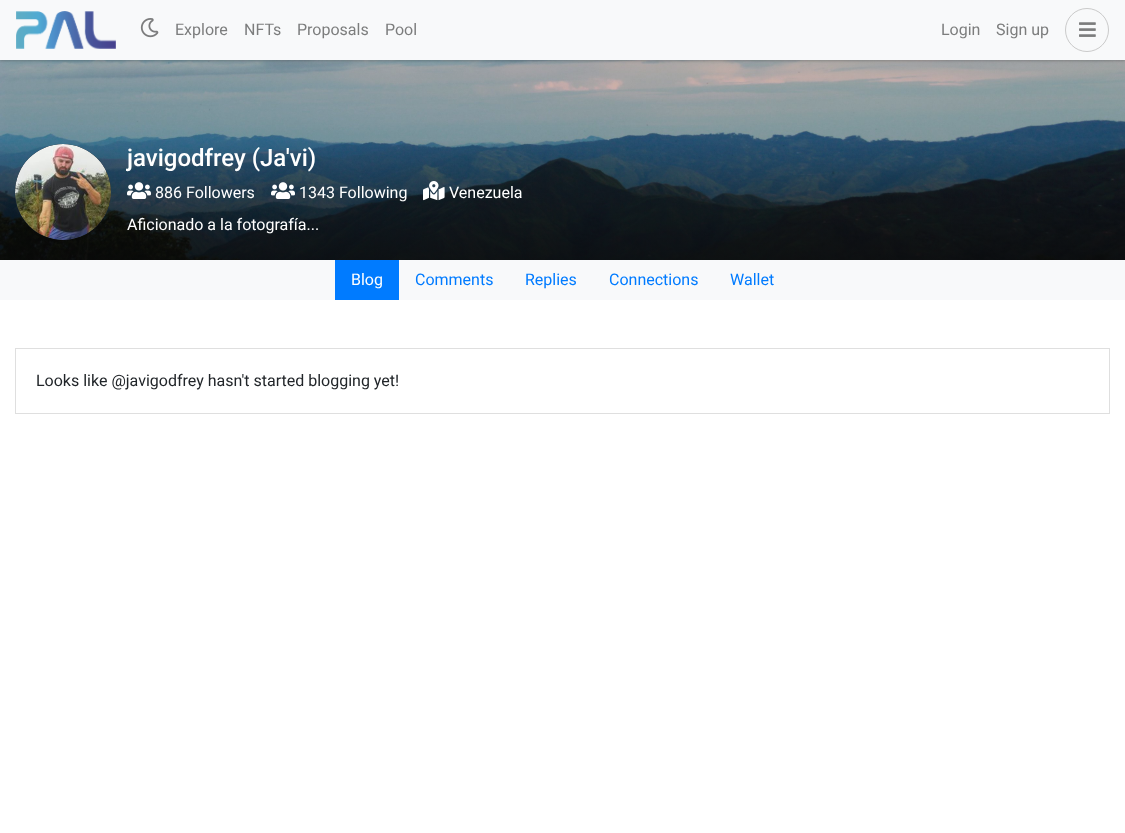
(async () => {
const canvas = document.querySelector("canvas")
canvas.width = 1125
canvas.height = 833
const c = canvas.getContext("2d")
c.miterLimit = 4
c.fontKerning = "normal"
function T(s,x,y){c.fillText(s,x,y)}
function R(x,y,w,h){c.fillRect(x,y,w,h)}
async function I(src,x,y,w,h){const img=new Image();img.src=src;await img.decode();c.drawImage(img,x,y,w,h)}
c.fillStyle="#fff"
R(0,0,1125,833)
await I("4.png",0,60,1125,200)
c.fillStyle="#00000024"
c.filter="blur(1px)"
c.beginPath()
c.rect(0,1,1125,60)
c.fill()
c.filter="none"
c.fillStyle="#00000012"
c.filter="blur(1.5px)"
c.beginPath()
c.rect(0,1,1125,60)
c.fill()
c.filter="none"
c.fillStyle="#f8f9fa"
R(0,0,1125,60)
await I("1.png",16,11,100,38)
await I("2.png",140,18,19,20)
c.font="16px Roboto"
c.fillStyle="#7c7d7d"
T("Explore",175,35)
T("NFTs",244,35)
T("Proposals",297,35)
T("Pool",385,35)
T("Login",941,35)
T("Sign up",996,35)
c.beginPath()
c.arc(1087,30,21.5,0,7)
c.strokeStyle="#cacaca"
c.stroke()
await I("3.png",1079,22,17,15)
c.fillStyle="#343a40"
c.beginPath()
c.arc(63,192,48,0,7)
c.fill()
await I("5.png",15,144,96,96)
c.font="500 24px Roboto"
c.fillStyle="#fff"
T("javigodfrey (Ja'vi)",127,166)
await I("6.png",127,182,24,17)
c.font="16px Roboto"
T("886 Followers",155,198)
await I("7.png",271,182,24,17)
T("1343 Following",299,198)
await I("8.png",423,181,22,20)
T("Venezuela",449,198)
T("Aficionado a la fotografía...",127,230)
c.fillStyle="#f8f9fa"
R(0,260,1125,40)
c.fillStyle="#007bff"
R(335,260,64,40)
c.fillStyle="#fff"
T("Blog",351,285)
c.fillStyle="#007bff"
T("Comments",415,285)
T("Replies",525,285)
T("Connections",609,285)
T("Wallet",730,285)
c.strokeStyle="#dfdfdf"
c.strokeRect(15.5,348.5,1094,65)
c.fillStyle="#212529"
T("Looks like @javigodfrey hasn't started blogging yet!",36,386)
})()
